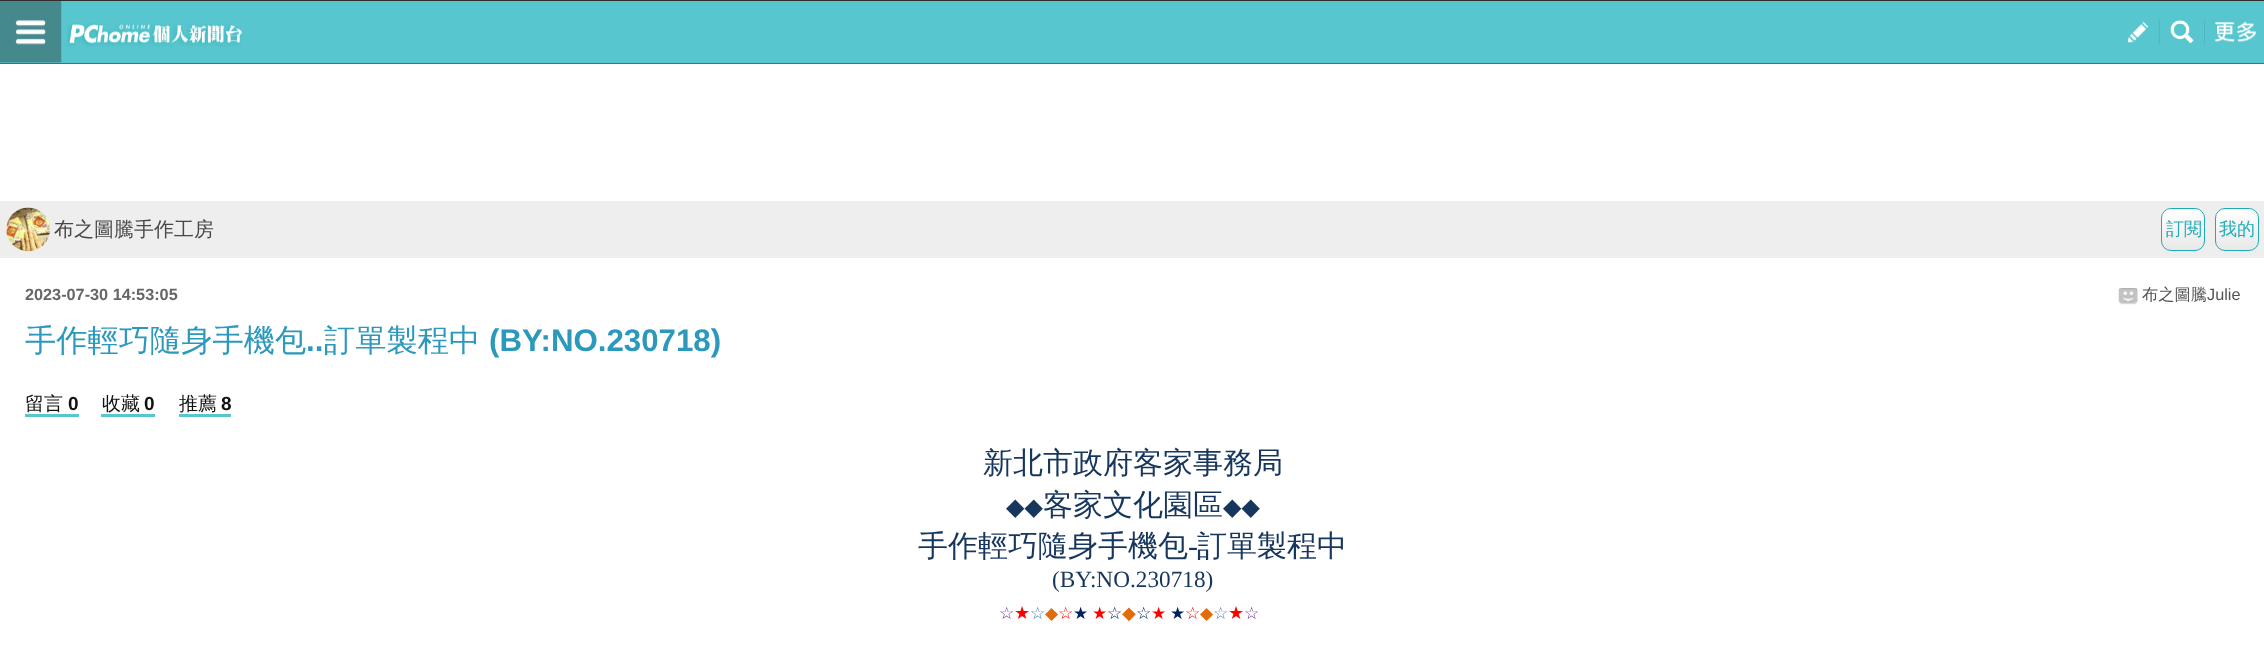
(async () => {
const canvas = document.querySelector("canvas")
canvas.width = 2264
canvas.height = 667
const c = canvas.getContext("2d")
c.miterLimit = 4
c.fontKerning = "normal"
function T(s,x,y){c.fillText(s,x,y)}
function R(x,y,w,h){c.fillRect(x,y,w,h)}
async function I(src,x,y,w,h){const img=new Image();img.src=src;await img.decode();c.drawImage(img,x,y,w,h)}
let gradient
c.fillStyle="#fff"
R(0,0,2264,667)
c.fillStyle="#58c6ce"
R(0,1,2264,62)
c.fillStyle="#2f2f2f"
R(0,0,2264,1)
c.fillStyle="#34787d"
R(0,63,2264,1)
await I("1.png",0,1,62,62)
await I("2.png",67,23,175,24)
await I("3.png",2127,19,33,25)
await I("4.png",2170,20,24,24)
await I("5.png",2204,20,53,24)
c.fillStyle="#eee"
R(0,201,2264,57)
await I("6.png",6,207,44,45)
c.font="500 20px WenQuanYi Zen Hei"
c.fillStyle="#484848"
T("布之圖騰手作工房",54,236)
c.save()
c.beginPath()
c.roundRect(2161,208,44,43,10)
c.clip()
gradient = c.createLinearGradient(2183,209,2183,250)
gradient.addColorStop(0,"#fff")
gradient.addColorStop(1,"#e8e8e8")
c.fillStyle = gradient
R(2161,209,44,41)
c.restore()
c.beginPath()
c.roundRect(2161.5,208.5,43,42,9.5)
c.strokeStyle="#1facb6"
c.stroke()
c.font="500 18px WenQuanYi Zen Hei"
c.fillStyle="#1facb6"
T("訂閱",2166,235)
c.save()
c.beginPath()
c.roundRect(2215,208,44,43,10)
c.clip()
gradient = c.createLinearGradient(2237,209,2237,250)
gradient.addColorStop(0,"#fff")
gradient.addColorStop(1,"#e8e8e8")
c.fillStyle = gradient
R(2215,209,44,41)
c.restore()
c.beginPath()
c.roundRect(2215.5,208.5,43,42,9.5)
c.stroke()
T("我的",2219,235)
c.font="bold 16.25px Liberation Sans"
c.fillStyle="#666"
T("2023-07-30 14:53:05",25,300)
await I("7.png",2118,288,20,17)
c.font="500 16.25px WenQuanYi Zen Hei"
c.fillStyle="#535353"
T("布之圖騰",2142,300)
c.font="16.25px Liberation Sans"
T("Julie",2207,300)
c.font="500 31.25px WenQuanYi Zen Hei"
c.fillStyle="#2c99bc"
T("手作輕巧隨身手機包",25,351)
c.font="bold 31.25px Liberation Sans"
T("..",306,351)
c.font="500 31.25px WenQuanYi Zen Hei"
T("訂單製程中",324,351)
c.font="bold 31.25px Liberation Sans"
T("(BY:NO.230718)",489,351)
c.font="500 19px WenQuanYi Zen Hei"
c.fillStyle="#111"
T("留言",25,410)
c.fillStyle="#58c6ce"
R(25,414,54,3)
c.font="bold 19px Liberation Sans"
c.fillStyle="#111"
T("0",68,410)
c.font="500 19px WenQuanYi Zen Hei"
T("收藏",102,410)
c.fillStyle="#58c6ce"
R(101,414,54,3)
c.font="bold 19px Liberation Sans"
c.fillStyle="#111"
T("0",144,410)
c.font="500 19px WenQuanYi Zen Hei"
T("推薦",179,410)
c.fillStyle="#58c6ce"
R(179,414,52,3)
c.font="bold 19px Liberation Sans"
c.fillStyle="#111"
T("8",221,410)
c.font="500 30px WenQuanYi Zen Hei"
c.fillStyle="#17365d"
T("新北市政府客家事務局",983,473)
c.font="24px DejaVu Sans"
T("◆◆",1006,515)
c.font="500 30px WenQuanYi Zen Hei"
T("客家文化園區",1043,515)
c.font="24px DejaVu Sans"
T("◆◆",1223,515)
c.font="500 30px WenQuanYi Zen Hei"
T("手作輕巧隨身手機包",918,556)
c.font="30px Liberation Serif"
T("-",1188,556)
c.font="500 30px WenQuanYi Zen Hei"
T("訂單製程中",1197,556)
c.font="23.25px Liberation Serif"
T("(BY:NO.230718)",1052,587)
c.font="17px DejaVu Sans"
c.fillStyle="#7030a0"
T("☆",999,619)
c.font="18px DejaVu Sans"
c.fillStyle="#f00"
T("★",1014,619)
c.font="17px DejaVu Sans"
c.fillStyle="#4f81bd"
T("☆",1030,619)
c.fillStyle="#e36c0a"
T("◆",1045,619)
c.fillStyle="#f00"
T("☆",1058,619)
c.fillStyle="#002060"
T("★",1073,619)
c.fillStyle="#f00"
T("★",1092,619)
c.fillStyle="#002060"
T("☆",1107,619)
c.font="18px DejaVu Sans"
c.fillStyle="#e36c0a"
T("◆",1122,619)
c.font="17px DejaVu Sans"
c.fillStyle="#002060"
T("☆",1136,619)
c.fillStyle="#f00"
T("★",1151,619)
c.fillStyle="#002060"
T("★",1170,619)
c.fillStyle="#f00"
T("☆",1185,619)
c.fillStyle="#e36c0a"
T("◆",1200,619)
c.fillStyle="#4f81bd"
T("☆",1213,619)
c.font="18px DejaVu Sans"
c.fillStyle="#f00"
T("★",1228,619)
c.font="17px DejaVu Sans"
c.fillStyle="#7030a0"
T("☆",1244,619)
})()
